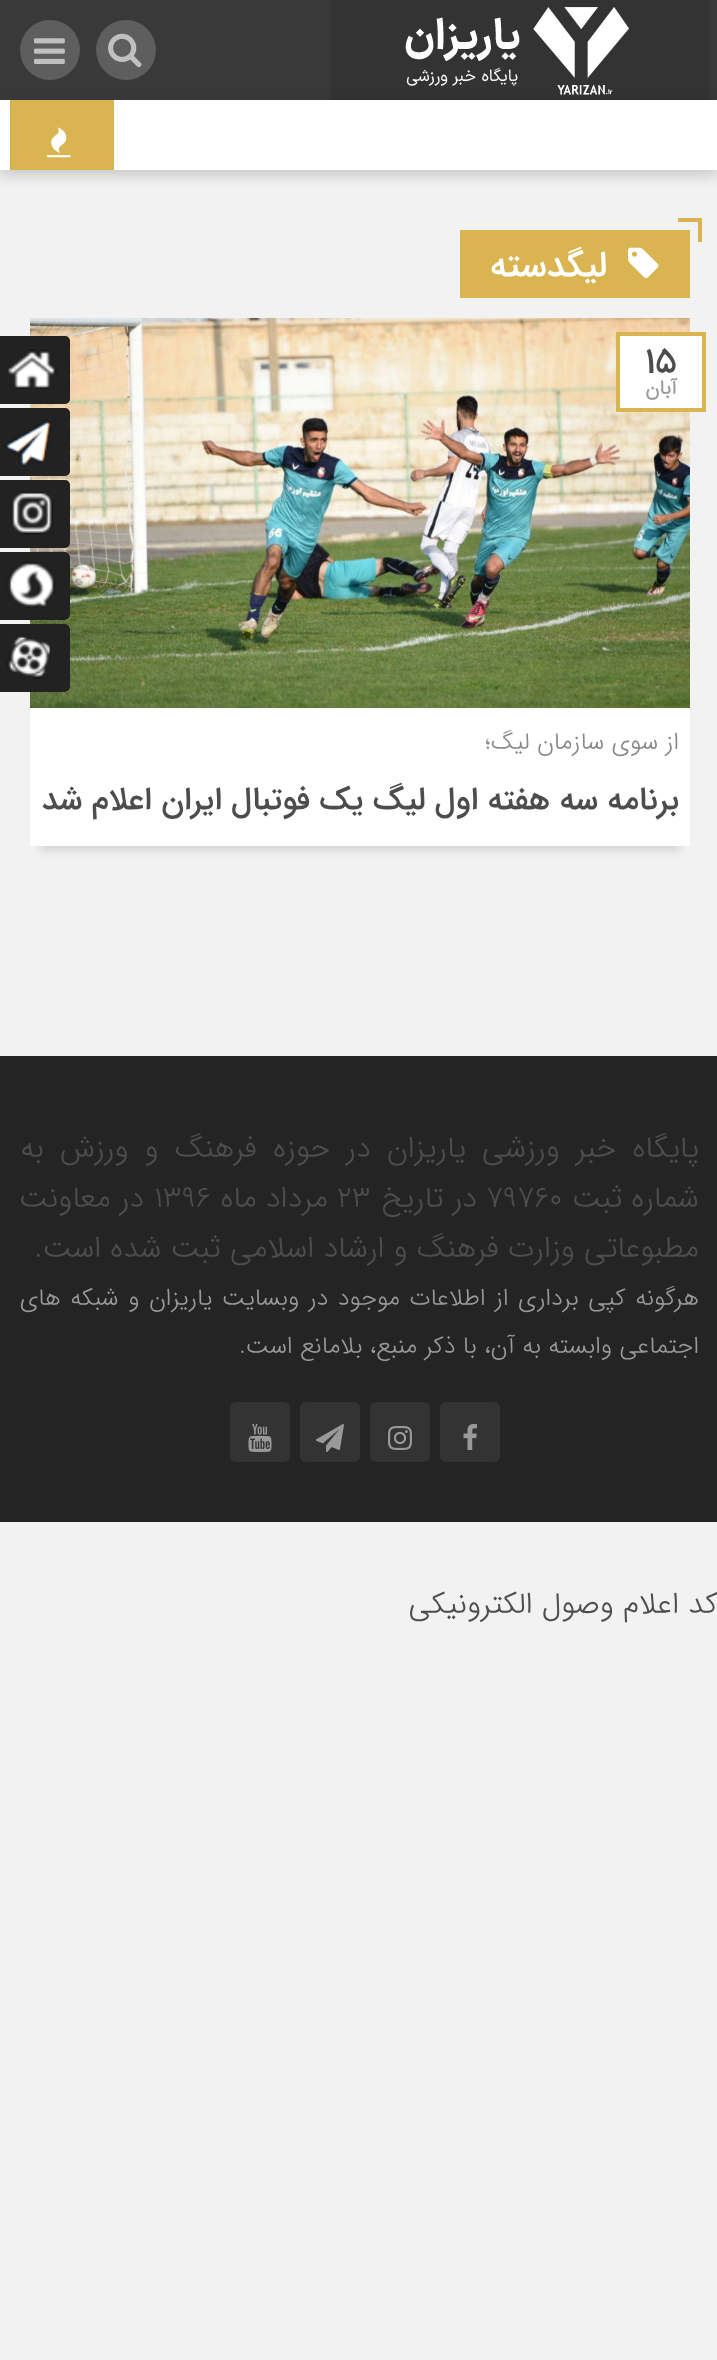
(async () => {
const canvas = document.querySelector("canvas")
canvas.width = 717
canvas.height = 2360
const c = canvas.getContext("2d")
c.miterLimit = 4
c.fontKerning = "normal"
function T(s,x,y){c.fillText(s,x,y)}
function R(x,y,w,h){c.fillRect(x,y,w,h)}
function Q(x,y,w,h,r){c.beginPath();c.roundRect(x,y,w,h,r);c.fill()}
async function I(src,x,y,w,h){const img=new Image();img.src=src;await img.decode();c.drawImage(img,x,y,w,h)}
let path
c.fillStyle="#f2f2f2"
R(0,0,717,2360)
c.fillStyle="#0000001a"
c.filter="blur(8px)"
c.beginPath()
c.rect(0,2,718,170)
c.fill()
c.filter="none"
c.fillStyle="#393939"
R(0,0,717,100)
c.fillStyle="#333"
R(330,0,380,100)
c.fillStyle="#0000001a"
c.filter="blur(8px)"
c.beginPath()
c.rect(0,106,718,70)
c.fill()
c.filter="none"
await I("1.png",405,7,224,88)
c.fillStyle="#5e5e5e"
c.beginPath()
c.arc(126,50,30,0,7)
c.fill()
await I("2.png",108,33,34,35)
c.beginPath()
c.arc(50,50,30,0,7)
c.fill()
await I("3.png",34,38,31,26)
c.fillStyle="#fff"
R(0,100,717,70)
c.fillStyle="#d9b451"
R(12,100,102,70)
c.fillStyle="#d2af4f"
R(10,100,2,70)
await I("4.png",47,127,24,31)
c.fillStyle="#d9b451"
R(460,230,230,68)
R(678,218,24,4)
R(698,218,4,24)
await I("5.png",628,247,31,32)
c.direction="rtl"
c.font="500 36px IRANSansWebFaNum"
c.fillStyle="#fff"
T("لیگدسته",607,276)
c.fillStyle="#cfcfcf"
c.filter="blur(5px)"
c.beginPath()
c.rect(40,342,640,508)
c.fill()
c.filter="none"
c.fillStyle="#fff"
R(30,708,660,138)
await I("6.png",30,318,660,390)
c.beginPath()
c.rect(618,334,86,76)
c.fill()
c.strokeStyle="#d9b451"
c.lineWidth=4
c.stroke()
c.direction="ltr"
c.fillStyle="#4d4d4d"
T("15",645,372)
c.direction="rtl"
c.font="bold 20px IRANSansWebFaNum"
c.fillStyle="#999"
T("آبان",677,394)
c.font="300 24px IRANSansWebFaNum"
c.fillStyle="#888"
T("از سوی سازمان لیگ؛",679,749)
c.font="500 32px IRANSansWebFaNum"
c.fillStyle="#4d4d4d"
T("برنامه سه هفته اول لیگ یک فوتبال ایران اعلام شد",679,809)
c.fillStyle="#d9b451"
path = new Path2D("M-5 336h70c3 0 5 2 5 5v58c0 3-2 5-5 5h-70z")
c.fill(path)
await I("7.png",0,336,70,68)
path = new Path2D("M-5 408h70c3 0 5 2 5 5v58c0 3-2 5-5 5h-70z")
c.fill(path)
await I("8.png",0,408,70,68)
path = new Path2D("M-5 480h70c3 0 5 2 5 5v58c0 3-2 5-5 5h-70z")
c.fill(path)
await I("9.png",0,480,70,68)
path = new Path2D("M-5 552h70c3 0 5 2 5 5v58c0 3-2 5-5 5h-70z")
c.fill(path)
await I("10.png",0,552,70,68)
path = new Path2D("M-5 624h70c3 0 5 2 5 5v58c0 3-2 5-5 5h-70z")
c.fill(path)
await I("11.png",0,624,70,68)
c.fillStyle="#242424"
R(0,1056,717,466)
c.wordSpacing="7px"
c.font="300 30px IRANSansWebFaNum"
c.fillStyle="#4d4d4d"
T("پایگاه خبر ورزشی یاریزان در حوزه فرهنگ و ورزش به",699,1157)
c.wordSpacing="0px"
T("شماره ثبت",699,1207)
c.direction="ltr"
T("۷۹۷۶۰",486,1207)
c.direction="rtl"
T("در تاریخ",477,1207)
c.direction="ltr"
T("۲۳",337,1207)
c.direction="rtl"
T("مرداد ماه",328,1207)
c.direction="ltr"
T("۱۳۹۶",154,1207)
c.direction="rtl"
T("در معاونت",144,1207)
T("مطبوعاتی وزارت فرهنگ و ارشاد اسلامی ثبت شده است.",699,1257)
c.wordSpacing="2.25px"
c.font="300 24px IRANSansWebFaNum"
c.fillStyle="#999"
T("هرگونه کپی برداری از اطلاعات موجود در وبسایت یاریزان و شبکه های",699,1305)
c.wordSpacing="0px"
T("اجتماعی وابسته به آن، با ذکر منبع، بلامانع است.",699,1353)
c.fillStyle="#333"
Q(440,1402,60,60,6)
await I("12.png",463,1424,14,26)
Q(370,1402,60,60,6)
await I("13.png",388,1426,24,24)
Q(300,1402,60,60,6)
await I("14.png",316,1424,28,28)
Q(230,1402,60,60,6)
await I("15.png",248,1424,24,28)
c.font="300 30px IRANSansWebFaNum"
c.fillStyle="#4d4d4d"
T("کد اعلام وصول الکترونیکی",718,1613)
})()
